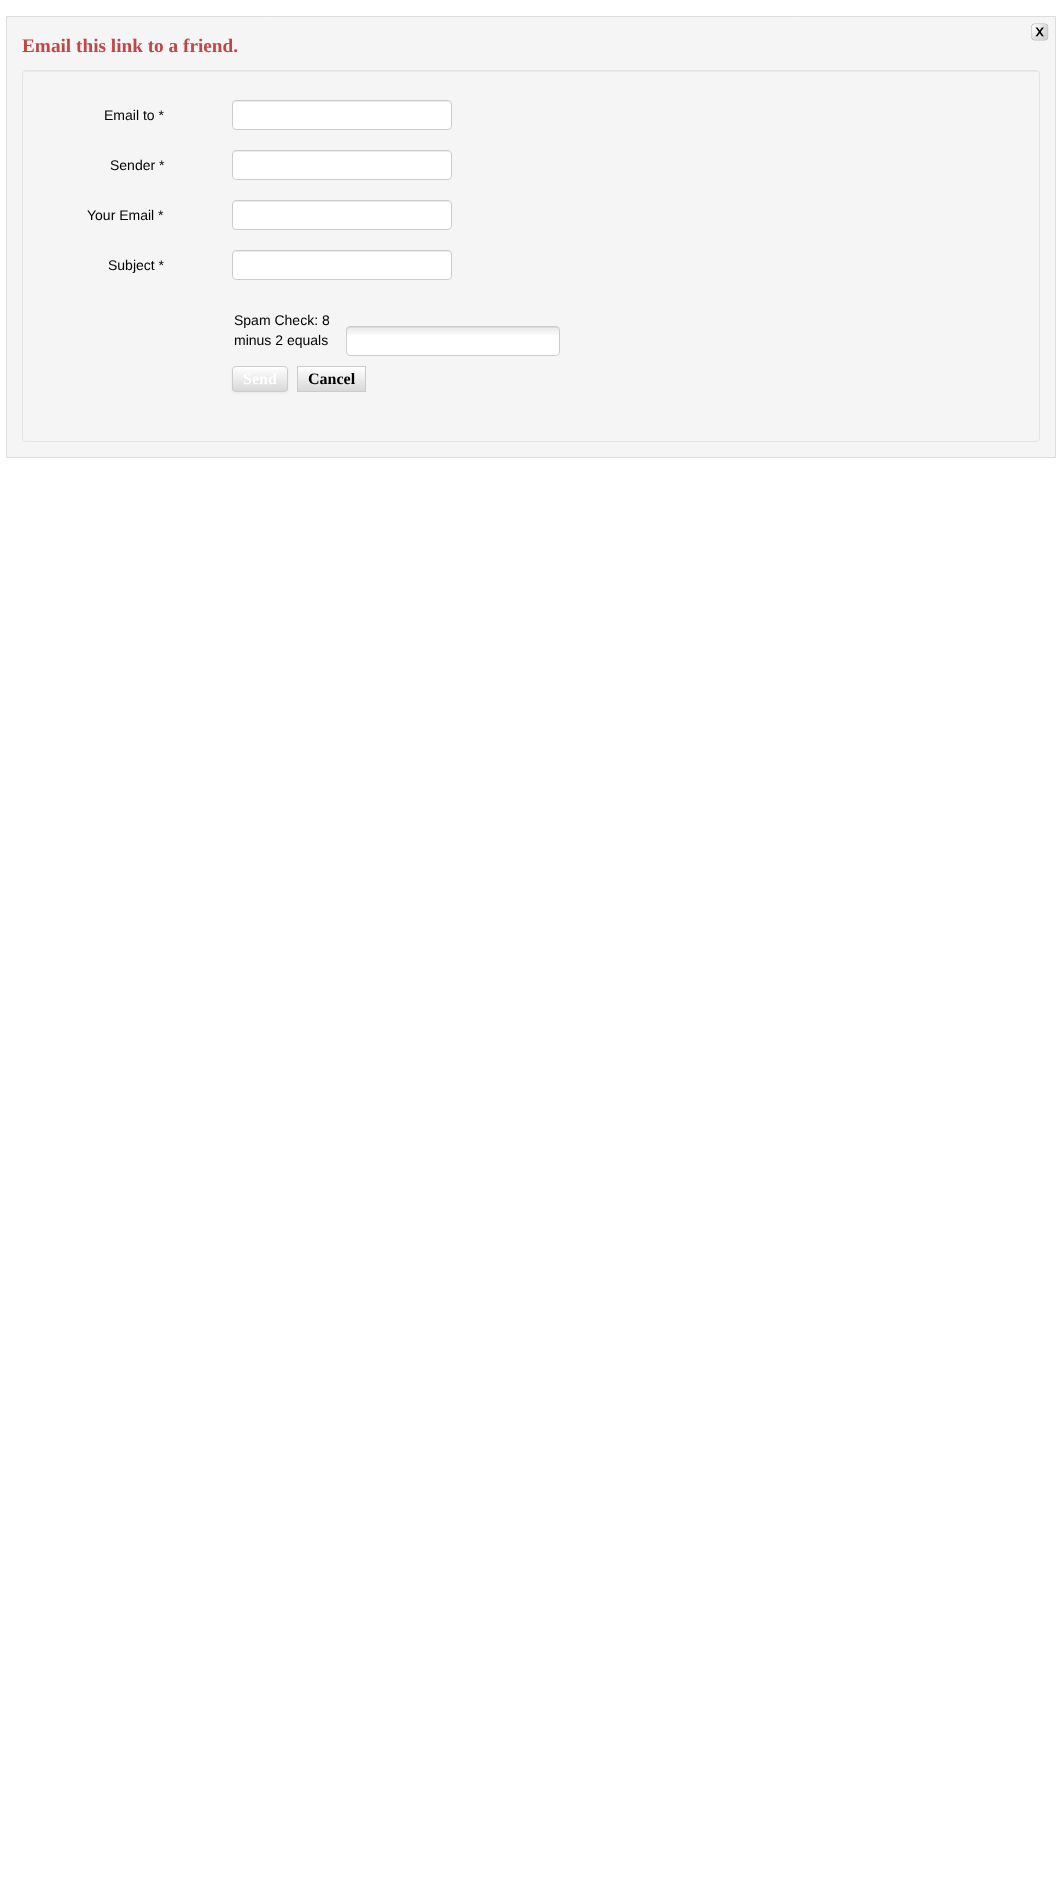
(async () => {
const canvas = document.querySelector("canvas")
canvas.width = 1062
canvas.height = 1890
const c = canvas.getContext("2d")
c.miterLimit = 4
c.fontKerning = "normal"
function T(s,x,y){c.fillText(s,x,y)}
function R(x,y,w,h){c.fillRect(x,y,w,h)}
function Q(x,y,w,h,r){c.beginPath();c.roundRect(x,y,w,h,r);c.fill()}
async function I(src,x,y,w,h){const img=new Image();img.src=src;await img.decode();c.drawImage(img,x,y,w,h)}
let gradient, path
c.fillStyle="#fff"
R(0,0,1062,1890)
c.fillStyle="#f5f5f5"
c.beginPath()
c.rect(6.5,16.5,1049,441)
c.fill()
c.strokeStyle="#ddd"
c.stroke()
await I("1.png",1031,23,18,18)
c.font="bold 19.25px Liberation Serif"
c.fillStyle="#c14746"
T("Email this link to a friend.",22,52)
c.fillStyle="#e9e9e9"
path = new Path2D("M26 72h1010c2 0 3 1 3 3c0-2-1-4-3-4h-1010c-2 0-3 2-3 4c0-2 1-3 3-3z")
c.fill(path)
c.beginPath()
c.roundRect(22.5,70.5,1017,371,3.5)
c.strokeStyle="#e3e3e3"
c.stroke()
c.font="14px Liberation Sans"
c.fillStyle="#000"
T("Email to *",104,120)
c.fillStyle="#fff"
Q(232,100,220,30,4)
c.fillStyle="#ececec"
path = new Path2D("M236 102h212c2 0 3 1 3 3v-1c0-2-1-3-3-3h-212c-2 0-3 1-3 3v1c0-2 1-3 3-3z")
c.fill(path)
c.beginPath()
c.roundRect(232.5,100.5,219,29,3.5)
c.strokeStyle="#ccc"
c.stroke()
c.fillStyle="#000"
T("Sender *",110,170)
c.fillStyle="#fff"
Q(232,150,220,30,4)
c.fillStyle="#ececec"
path = new Path2D("M236 152h212c2 0 3 1 3 3v-1c0-2-1-3-3-3h-212c-2 0-3 1-3 3v1c0-2 1-3 3-3z")
c.fill(path)
c.beginPath()
c.roundRect(232.5,150.5,219,29,3.5)
c.stroke()
c.fillStyle="#000"
T("Your Email *",87,220)
c.fillStyle="#fff"
Q(232,200,220,30,4)
c.fillStyle="#ececec"
path = new Path2D("M236 202h212c2 0 3 1 3 3v-1c0-2-1-3-3-3h-212c-2 0-3 1-3 3v1c0-2 1-3 3-3z")
c.fill(path)
c.beginPath()
c.roundRect(232.5,200.5,219,29,3.5)
c.stroke()
c.fillStyle="#000"
T("Subject *",108,270)
c.fillStyle="#fff"
Q(232,250,220,30,4)
c.fillStyle="#ececec"
path = new Path2D("M236 252h212c2 0 3 1 3 3v-1c0-2-1-3-3-3h-212c-2 0-3 1-3 3v1c0-2 1-3 3-3z")
c.fill(path)
c.beginPath()
c.roundRect(232.5,250.5,219,29,3.5)
c.stroke()
c.fillStyle="#000"
T("Spam Check: 8",234,325)
T("minus 2 equals",234,345)
c.fillStyle="#fff"
Q(346,326,214,30,4)
await I("2.png",346,327,214,8)
c.fillStyle="#dbdada"
path = new Path2D("M350 328h206c2 0 3 1 3 3v-1c0-2-1-3-3-3h-206c-2 0-3 1-3 3v1c0-2 1-3 3-3z")
c.fill(path)
c.beginPath()
c.roundRect(346.5,326.5,213,29,3.5)
c.stroke()
c.fillStyle="#0000000d"
c.filter="blur(1px)"
c.beginPath()
c.roundRect(232,367,56,26,4)
c.fill()
c.filter="none"
c.save()
c.beginPath()
c.roundRect(232,366,56,26,4)
c.clip()
gradient = c.createLinearGradient(260,367,260,391)
gradient.addColorStop(0,"#fff")
gradient.addColorStop(1,"#d8d8d8")
c.fillStyle = gradient
R(232,367,56,24)
c.restore()
c.fillStyle="#fefefe"
path = new Path2D("M236 368h48c2 0 3 1 3 3c0-6-7-4-11-4h-32c-4 0-11-2-11 4c0-2 1-3 3-3z")
c.fill(path)
c.beginPath()
c.roundRect(232.5,366.5,55,25,3.5)
c.stroke()
c.font="bold 16px Liberation Serif"
c.fillStyle="#fff"
T("Send",243,384)
gradient = c.createLinearGradient(332,367,332,391)
gradient.addColorStop(0,"#fff")
gradient.addColorStop(1,"#d8d8d8")
c.fillStyle = gradient
R(298,367,67,24)
c.strokeRect(297.5,366.5,68,25)
c.fillStyle="#000"
T("Cancel",308,384)
})()
